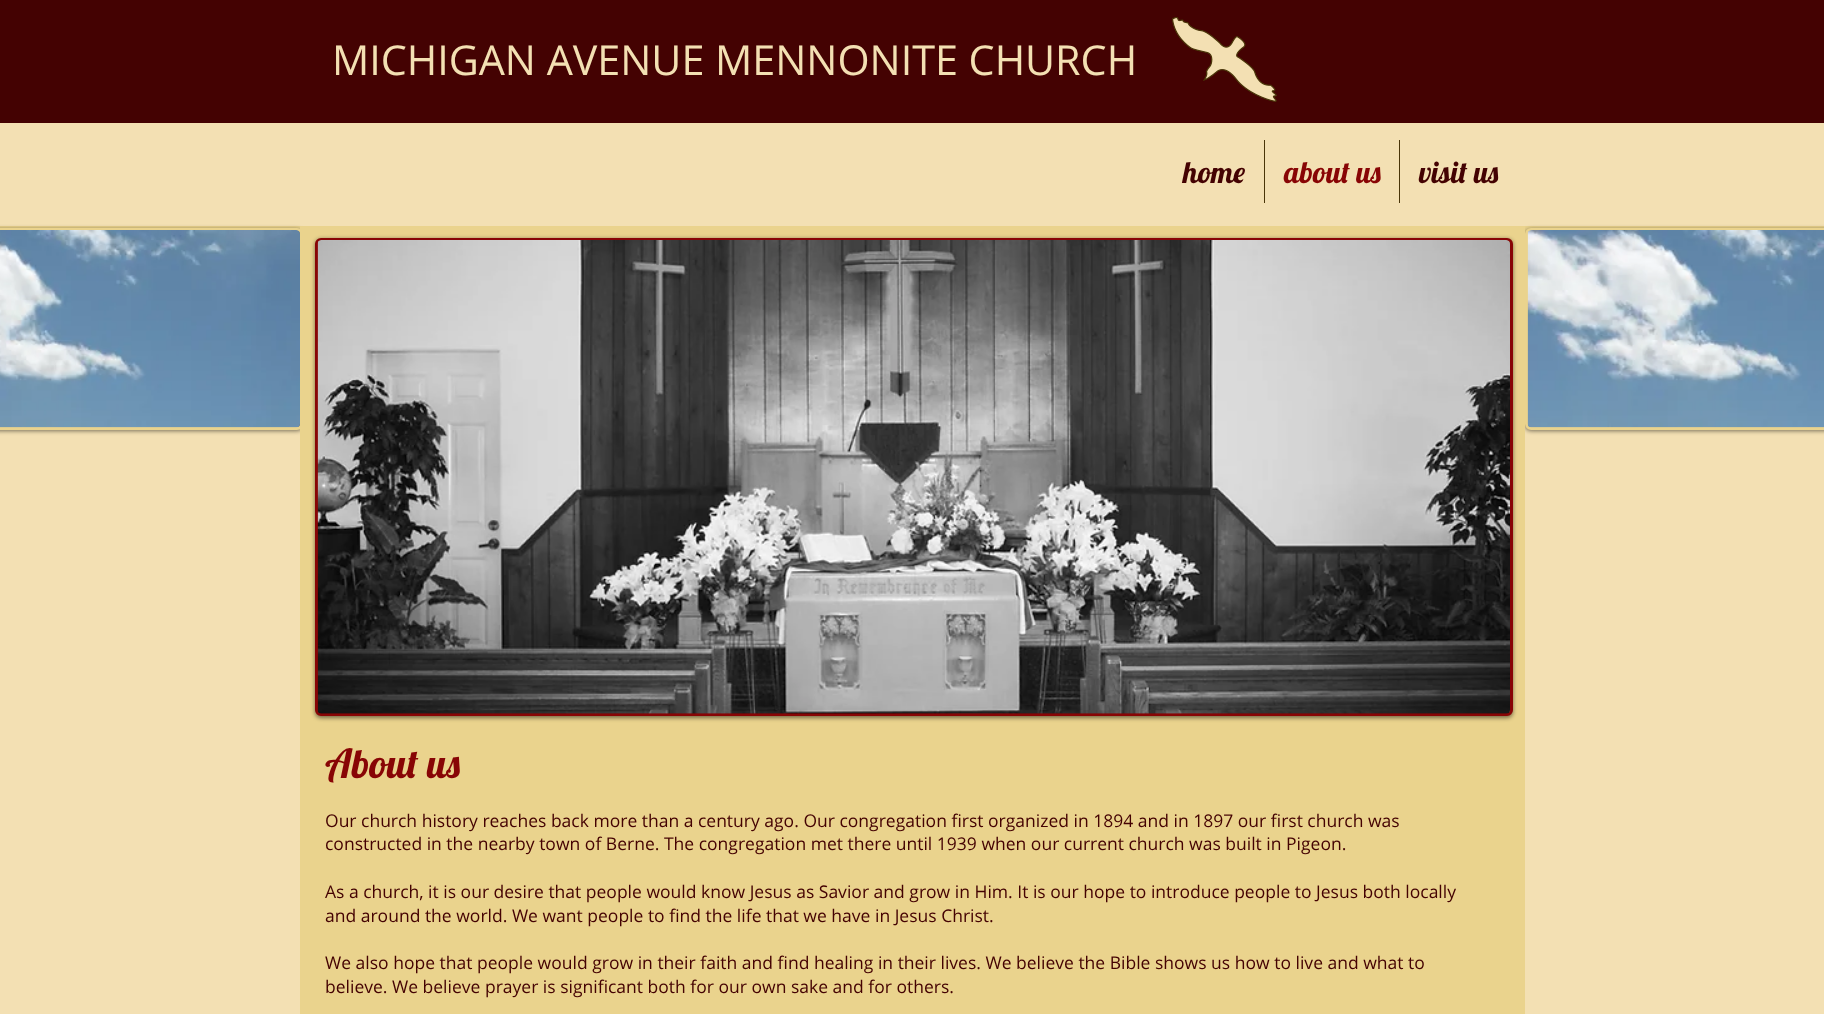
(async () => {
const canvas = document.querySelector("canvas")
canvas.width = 1824
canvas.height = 1014
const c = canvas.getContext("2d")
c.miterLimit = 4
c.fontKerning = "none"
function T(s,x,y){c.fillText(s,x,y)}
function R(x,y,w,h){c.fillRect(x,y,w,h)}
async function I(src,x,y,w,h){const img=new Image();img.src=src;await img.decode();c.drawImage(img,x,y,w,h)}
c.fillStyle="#f3e0b3"
R(0,0,1824,1014)
c.fillStyle="#440202"
R(0,0,1824,123)
c.font="41.25px Open Sans"
c.fillStyle="#f3e0b3"
T("MICHIGAN AVENUE MENNONITE CHURCH",332,75)
await I("1.png",1172,17,105,85)
c.font="30px Lobster"
c.fillStyle="#440202"
T("home",1183,183)
c.fillStyle="#493508"
R(1264,140,1,63)
c.fillStyle="#880505"
T("about us",1284,183)
c.fillStyle="#493508"
R(1399,140,1,63)
c.fillStyle="#440202"
T("visit us",1419,183)
c.fillStyle="#ead38d"
R(0,226,1824,200)
c.fillStyle="#00000080"
c.filter="blur(2px)"
c.beginPath()
c.roundRect(-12,229,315,202,6)
c.fill()
c.filter="none"
c.beginPath()
c.roundRect(-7.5,229.5,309,199,4.5)
c.strokeStyle="#ead38d"
c.lineWidth=3
c.stroke()
await I("2.png",0,230,300,198)
c.filter="blur(2px)"
c.beginPath()
c.roundRect(1525,229,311,202,6)
c.fill()
c.filter="none"
c.beginPath()
c.roundRect(1526.5,229.5,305,199,4.5)
c.stroke()
await I("3.png",1527,230,297,198)
c.fillStyle="#ead38d"
R(300,226,1225,788)
c.fillStyle="#00000080"
c.filter="blur(2px)"
c.beginPath()
c.roundRect(315,239,1198,479,6)
c.fill()
c.filter="none"
c.beginPath()
c.roundRect(316.5,239.5,1195,475,4.5)
c.strokeStyle="#880505"
c.stroke()
await I("4.png",317,240,1193,474)
c.font="40px Lobster"
c.fillStyle="#880505"
T("About us",325,778)
c.font="17.5px Open Sans"
c.fillStyle="#440202"
T("Our church history reaches back more than a century ago. Our congregation first organized in 1894 and in 1897 our first church was",325,827)
T("constructed in the nearby town of Berne. The congregation met there until 1939 when our current church was built in Pigeon.",325,850)
T("As a church, it is our desire that people would know Jesus as Savior and grow in Him. It is our hope to introduce people to Jesus both locally",325,898)
T("and around the world. We want people to find the life that we have in Jesus Christ.",325,922)
T("We also hope that people would grow in their faith and find healing in their lives. We believe the Bible shows us how to live and what to",325,969)
T("believe. We believe prayer is significant both for our own sake and for others.",325,993)
})()
